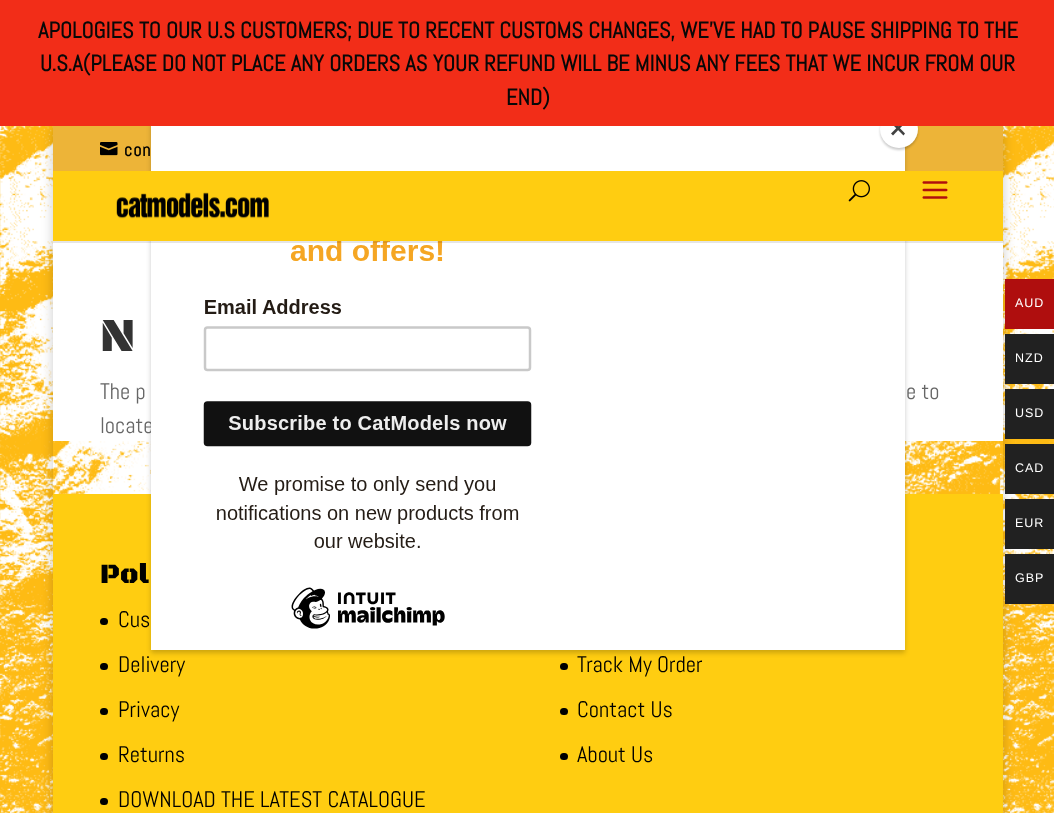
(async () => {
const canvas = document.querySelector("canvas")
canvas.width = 1054
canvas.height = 813
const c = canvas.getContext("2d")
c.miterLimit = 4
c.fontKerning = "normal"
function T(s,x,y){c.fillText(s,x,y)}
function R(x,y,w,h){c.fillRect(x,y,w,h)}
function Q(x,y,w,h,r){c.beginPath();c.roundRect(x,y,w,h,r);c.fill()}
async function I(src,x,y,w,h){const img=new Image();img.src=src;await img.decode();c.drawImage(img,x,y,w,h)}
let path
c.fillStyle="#fff"
R(0,0,1054,813)
await I("1.png",0,126,1054,687)
c.save()
path = new Path2D("M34 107h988v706h-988zm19 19h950v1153h-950z")
c.clip(path,"evenodd")
c.fillStyle="#00000033"
c.filter="blur(6px)"
c.beginPath()
c.rect(53,126,950,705)
c.fill()
c.filter="none"
c.restore()
c.fillStyle="#edb438"
R(53,126,950,45)
c.fillStyle="#fff"
R(53,241,950,200)
c.fillStyle="#ffcd11"
R(53,494,950,319)
c.fillStyle="#00000033"
c.filter="blur(2.5px)"
c.beginPath()
c.rect(151,125,754,528)
c.fill()
c.filter="none"
c.font="22.5px Abel"
c.fillStyle="#666"
T("locate",100,433)
await I("2.png",151,126,754,524)
c.fillStyle="#00000033"
c.filter="blur(1px)"
c.beginPath()
c.roundRect(880,113,38,37,18.5)
c.fill()
c.filter="none"
c.fillStyle="#fff"
c.beginPath()
c.arc(899,129,19,0,7)
c.fill()
c.fillStyle="#414141"
path = new Path2D("M903.5 121l1.5 2l-12 12.5l-2-2z")
c.fill(path)
path = new Path2D("M891 123l2-2l12 12.5l-1.5 2z")
c.fill(path)
c.fillStyle="#f22d18"
R(0,0,1054,126)
c.font="bold 22.5px Abel"
c.fillStyle="#080808"
T("APOLOGIES TO OUR U.S CUSTOMERS; DUE TO RECENT CUSTOMS CHANGES, WE'VE HAD TO PAUSE SHIPPING TO THE",38,38)
T("U.S.A(PLEASE DO NOT PLACE ANY ORDERS AS YOUR REFUND WILL BE MINUS ANY FEES THAT WE INCUR FROM OUR",40,71)
T("END)",506,105)
await I("3.png",100,142,18,14)
c.letterSpacing="1px"
c.font="bold 18px Abel"
c.fillStyle="#000"
T("con",124,156)
c.fillStyle="#0000001a"
path = new Path2D("M53 241v2h950v-70h-1v68z")
c.fill(path)
c.fillStyle="#ffcd11"
R(53,171,950,70)
await I("4.png",116,192,153,27)
await I("5.png",848,180,22,22)
await I("6.png",922,181,26,18)
c.letterSpacing="0px"
c.font="900 48px Black Ops One"
c.fillStyle="#333"
T("N",100,351)
c.font="22.5px Abel"
c.fillStyle="#666"
T("The p",100,399)
T("e to",906,399)
c.font="900 28px Black Ops One"
c.fillStyle="#000"
T("Pol",100,583)
Q(100,618,8,7,3.5)
c.font="22.5px Abel"
T("Cus",118,627)
Q(100,663,8,7,3.5)
T("Delivery",118,672)
Q(100,708,8,7,3.5)
T("Privacy",118,717)
Q(100,753,8,7,3.5)
T("Returns",118,762)
Q(100,798,8,7,3.5)
T("DOWNLOAD THE LATEST CATALOGUE",118,807)
Q(560,663,8,7,3.5)
T("Track My Order",577,672)
Q(560,708,8,7,3.5)
T("Contact Us",577,717)
Q(560,753,8,7,3.5)
T("About Us",577,762)
c.fillStyle="#af0e0e"
R(1005,279,49,50)
c.letterSpacing="1px"
c.font="12.5px Liberation Sans"
c.fillStyle="#fff"
T("AUD",1015,307)
c.fillStyle="#212121"
R(1005,334,49,50)
c.fillStyle="#fff"
T("NZD",1015,362)
c.fillStyle="#212121"
R(1005,389,49,50)
c.fillStyle="#fff"
T("USD",1015,417)
c.fillStyle="#212121"
R(1005,444,49,50)
c.fillStyle="#fff"
T("CAD",1015,472)
c.fillStyle="#212121"
R(1005,499,49,50)
c.fillStyle="#fff"
T("EUR",1015,527)
c.fillStyle="#212121"
R(1005,554,49,50)
c.fillStyle="#fff"
T("GBP",1015,582)
})()
